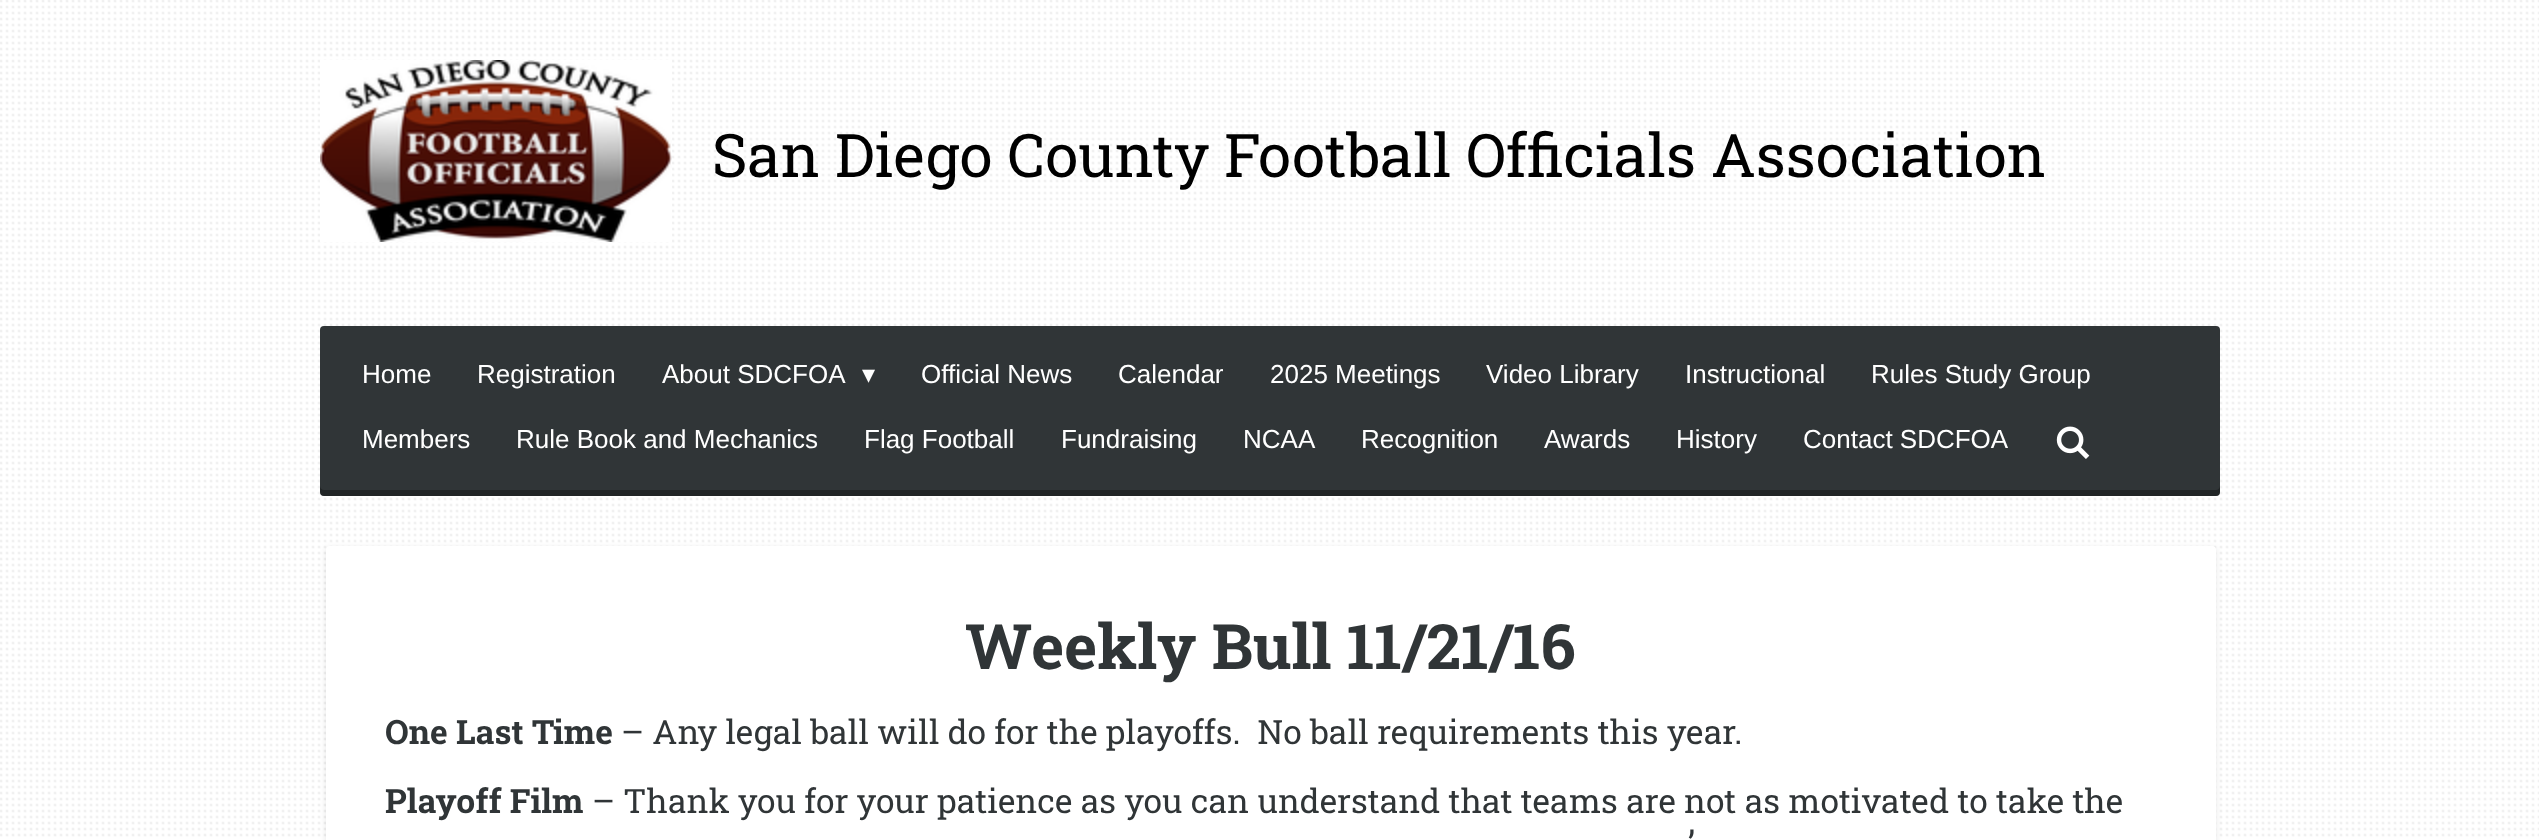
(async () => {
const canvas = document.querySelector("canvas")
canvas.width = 2539
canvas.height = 840
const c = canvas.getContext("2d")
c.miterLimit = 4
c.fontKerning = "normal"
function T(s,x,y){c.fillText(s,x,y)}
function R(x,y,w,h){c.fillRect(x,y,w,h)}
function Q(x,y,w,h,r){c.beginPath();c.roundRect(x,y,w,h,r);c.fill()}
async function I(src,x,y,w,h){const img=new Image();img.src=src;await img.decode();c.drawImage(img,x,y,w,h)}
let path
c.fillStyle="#fff"
R(0,0,2539,840)
await I("1.png",0,0,2539,838)
await I("2.png",320,60,352,182)
c.font="60px Roboto Slab"
c.fillStyle="#000"
T("San Diego County Football Officials Association",712,177)
c.fillStyle="#303537"
Q(320,326,1900,170,4)
c.fillStyle="#0000004d"
path = new Path2D("M320 486v6c0 2 2 4 4 4h1892c2 0 4-2 4-4v-6c0 2-2 4-4 4h-1892c-2 0-4-2-4-4z")
c.fill(path)
c.font="26px Liberation Sans"
c.fillStyle="#fff"
T("Home",362,383)
T("Registration",477,383)
T("About SDCFOA",662,383)
c.font="26px DejaVu Sans"
T("▾",862,383)
c.font="26px Liberation Sans"
T("Official News",921,383)
T("Calendar",1118,383)
T("2025 Meetings",1270,383)
T("Video Library",1486,383)
T("Instructional",1685,383)
T("Rules Study Group",1871,383)
T("Members",362,448)
T("Rule Book and Mechanics",516,448)
T("Flag Football",864,448)
T("Fundraising",1061,448)
T("NCAA",1243,448)
T("Recognition",1361,448)
T("Awards",1544,448)
T("History",1676,448)
T("Contact SDCFOA",1803,448)
await I("3.png",2056,426,34,33)
c.fillStyle="#0000001a"
c.filter="blur(3px)"
c.beginPath()
c.rect(326,548,1890,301)
c.fill()
c.filter="none"
c.fillStyle="#fff"
Q(326,546,1890,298,4)
c.font="bold 62.5px Roboto Slab"
c.fillStyle="#303537"
T("Weekly Bull 11/21/16",965,669)
c.font="bold 33.6px Roboto Slab"
T("One Last Time",385,744)
c.font="33.6px Roboto Slab"
T("– Any legal ball will do for the playoffs.  No ball requirements this year.",621,744)
c.font="bold 33.6px Roboto Slab"
T("Playoff Film",385,813)
c.font="33.6px Roboto Slab"
T("– Thank you for your patience as you can understand that teams are not as motivated to take the",592,813)
T("’",1688,855)
})()
